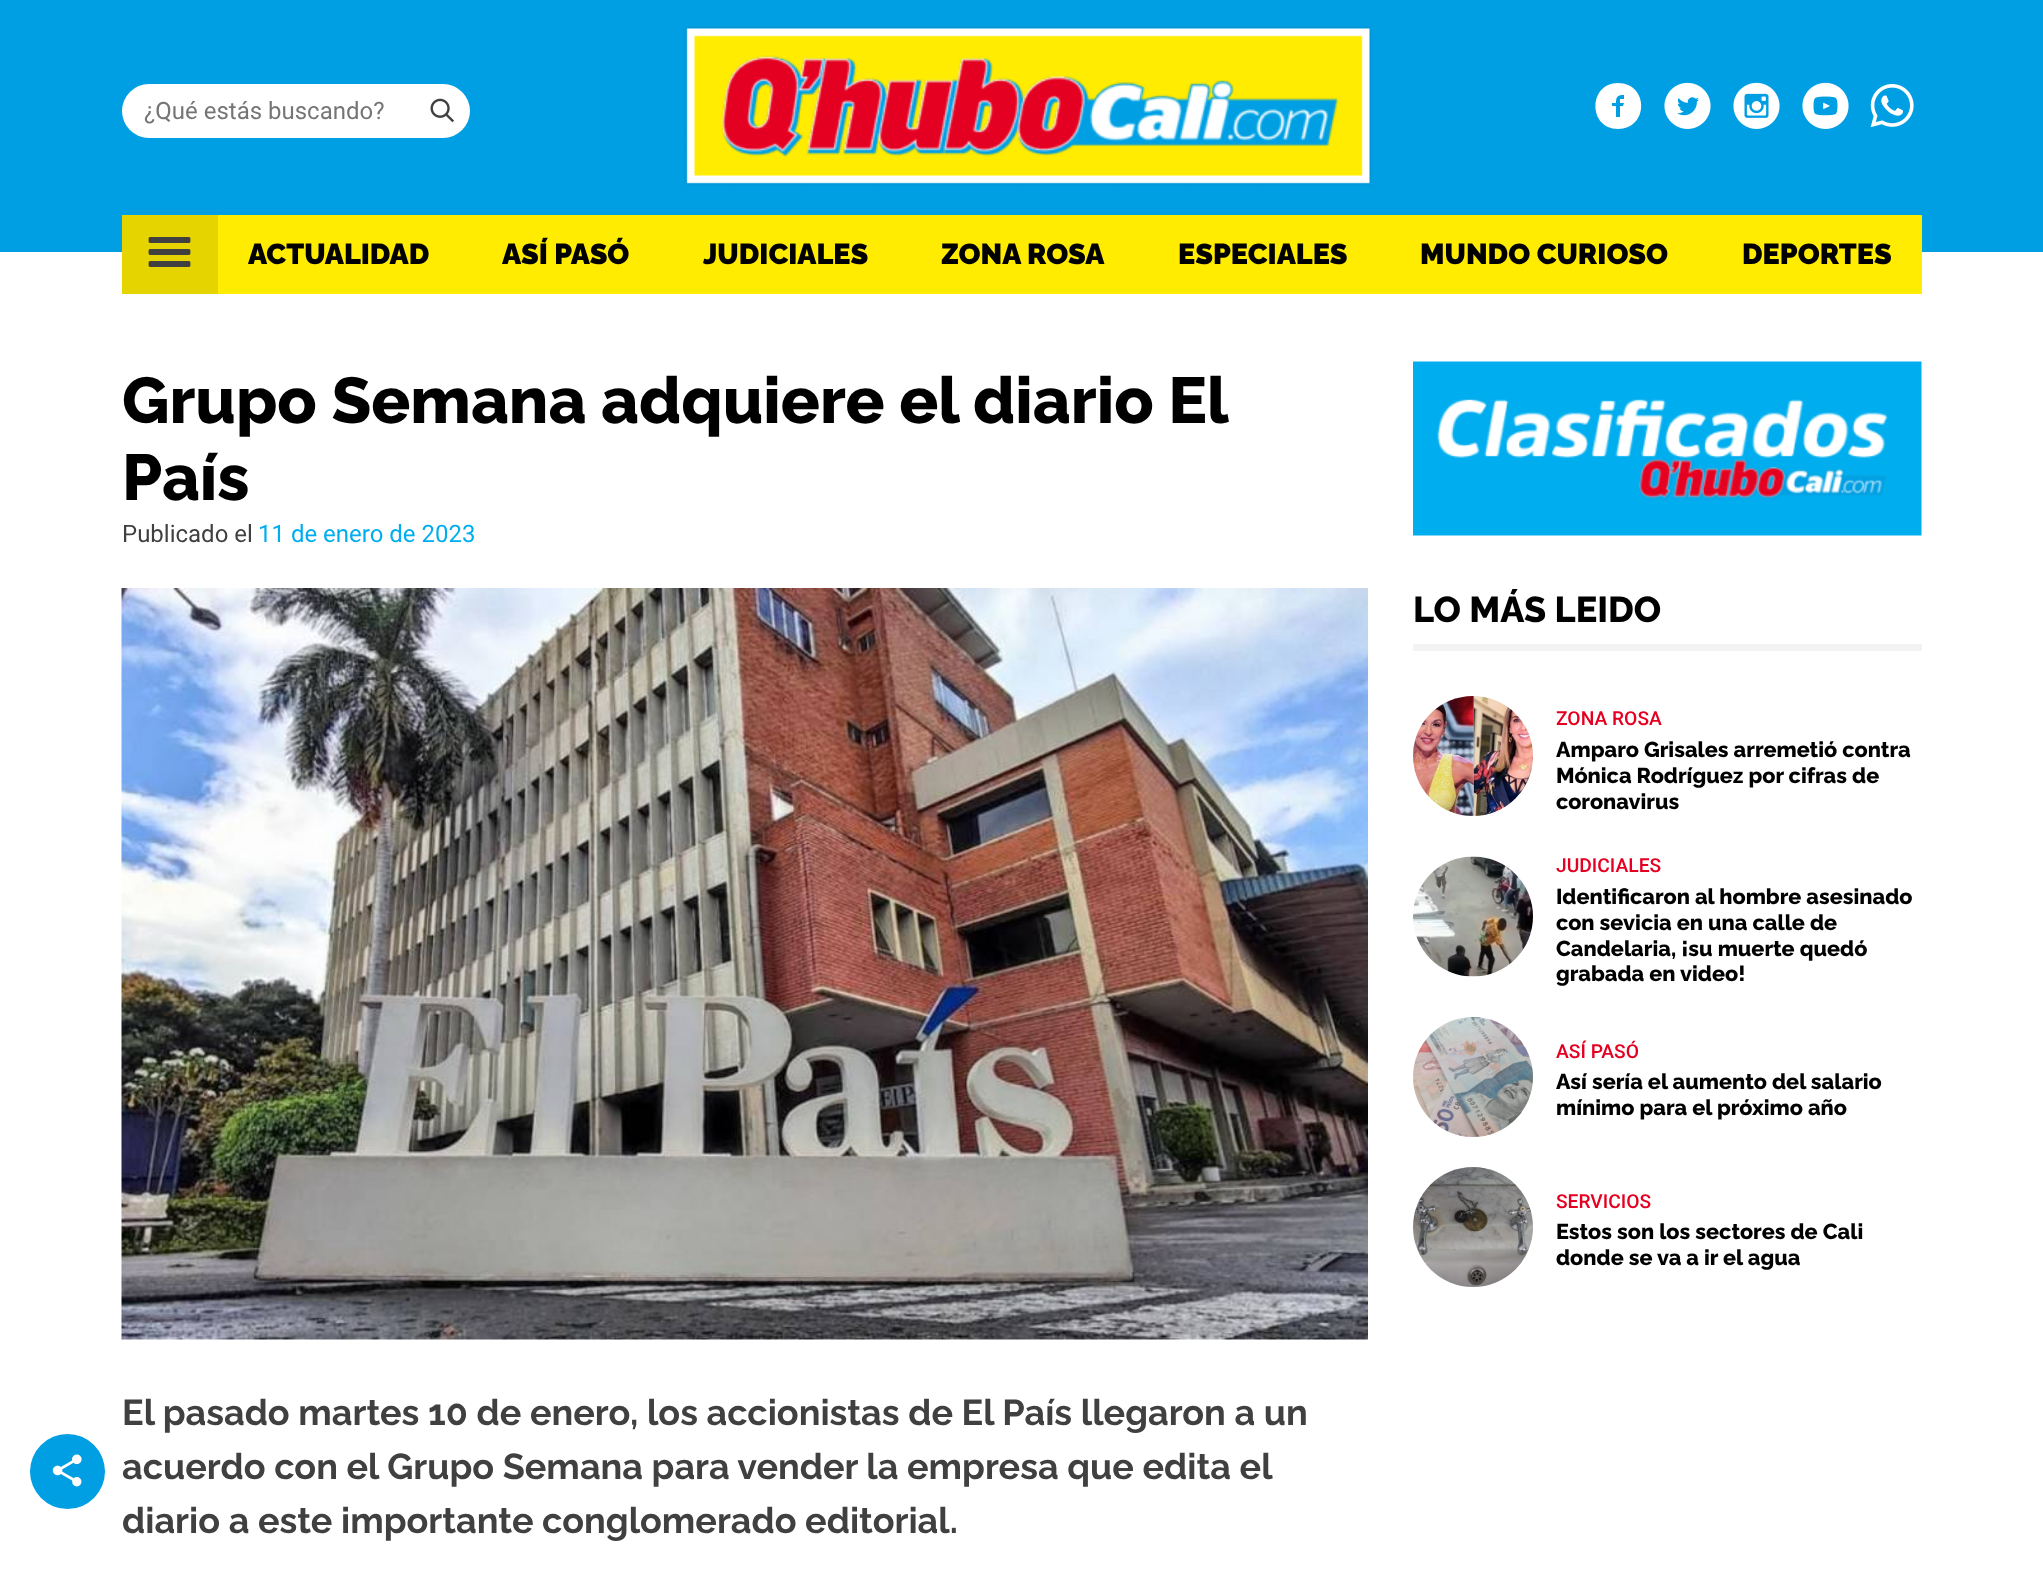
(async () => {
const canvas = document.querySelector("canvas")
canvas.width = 2043
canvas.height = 1583
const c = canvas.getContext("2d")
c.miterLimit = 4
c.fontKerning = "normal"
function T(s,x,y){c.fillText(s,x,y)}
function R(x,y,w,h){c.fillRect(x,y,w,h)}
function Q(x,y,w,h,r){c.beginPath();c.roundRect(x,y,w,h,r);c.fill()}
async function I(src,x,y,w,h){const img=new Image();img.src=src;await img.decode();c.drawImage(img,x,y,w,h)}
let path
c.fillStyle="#fff"
R(0,0,2043,1583)
c.fillStyle="#009ee2"
R(0,0,2043,252)
c.fillStyle="#fff"
Q(122,84,348,54,27)
c.font="24px Roboto"
c.fillStyle="#757575"
T("¿Qué estás buscando?",144,119)
await I("1.png",430,98,24,25)
await I("2.png",684,26,688,160)
c.fillStyle="#fff"
path = new Path2D("M1618 83c-30 0-30 46 0 46c31 0 31-46 0-46zm6 16c-5 0-4-1-4 4h4l-1 3h-3v11h-4v-11h-4v-3h4c0-7 2-8 8-8z")
c.fill(path)
await I("3.png",1664,82,47,47)
await I("4.png",1733,82,47,47)
await I("5.png",1802,82,47,47)
await I("6.png",1870,84,44,44)
c.fillStyle="#ffec00"
R(218,215,1704,79)
c.fillStyle="#e6d400"
R(122,215,96,79)
await I("7.png",148,237,43,30)
c.font="100 28.75px 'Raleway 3'"
c.fillStyle="#000"
T("ACTUALIDAD",248,264)
T("ASÍ PASÓ",502,264)
T("JUDICIALES",703,264)
T("ZONA ROSA",941,264)
T("ESPECIALES",1178,264)
T("MUNDO CURIOSO",1420,264)
T("DEPORTES",1742,264)
c.fillStyle="#009ee2"
c.beginPath()
c.arc(67.5,1471.5,37.5,0,7)
c.fill()
await I("8.png",52,1454,30,33)
c.wordSpacing="-0.5px"
c.font="100 64.75px Raleway"
c.fillStyle="#000"
T("Grupo Semana adquiere el diario El",122,423)
c.wordSpacing="0px"
T("País",122,500)
c.font="24px Roboto"
c.fillStyle="#404040"
T("Publicado el",122,542)
c.fillStyle="#00adee"
T("11 de enero de 2023",258,542)
await I("9.png",121,588,1247,752)
c.font="100 36px 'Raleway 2'"
c.fillStyle="#404040"
T("El pasado martes 10 de enero, los accionistas de El País llegaron a un",122,1425)
T("acuerdo con el Grupo Semana para vender la empresa que edita el",122,1479)
T("diario a este importante conglomerado editorial.",122,1533)
await I("10.png",1413,361,509,175)
c.fillStyle="#f3f3f3"
R(1413,644,509,7)
c.font="100 36px Raleway"
c.fillStyle="#000"
T("LO MÁS LEIDO",1413,622)
await I("11.png",1413,696,120,120)
c.font="500 19.25px Roboto"
c.fillStyle="#e50022"
T("ZONA ROSA",1556,725)
c.font="100 21.6px Raleway"
c.fillStyle="#000"
T("Amparo Grisales arremetió contra",1556,757)
T("Mónica Rodríguez por cifras de",1556,783)
T("coronavirus",1556,809)
await I("12.png",1413,856,120,121)
c.font="500 19.25px Roboto"
c.fillStyle="#e50022"
T("JUDICIALES",1556,872)
c.font="100 21.6px Raleway"
c.fillStyle="#000"
T("Identificaron al hombre asesinado",1556,904)
T("con sevicia en una calle de",1556,930)
T("Candelaria, ¡su muerte quedó",1556,956)
T("grabada en video!",1556,981)
await I("13.png",1413,1017,120,120)
c.font="500 19.25px Roboto"
c.fillStyle="#e50022"
T("ASÍ PASÓ",1556,1058)
c.font="100 21.6px Raleway"
c.fillStyle="#000"
T("Así sería el aumento del salario",1556,1089)
T("mínimo para el próximo año",1556,1115)
await I("14.png",1413,1167,120,120)
c.font="500 19.25px Roboto"
c.fillStyle="#e50022"
T("SERVICIOS",1556,1208)
c.font="100 21.6px Raleway"
c.fillStyle="#000"
T("Estos son los sectores de Cali",1556,1239)
T("donde se va a ir el agua",1556,1265)
})()
